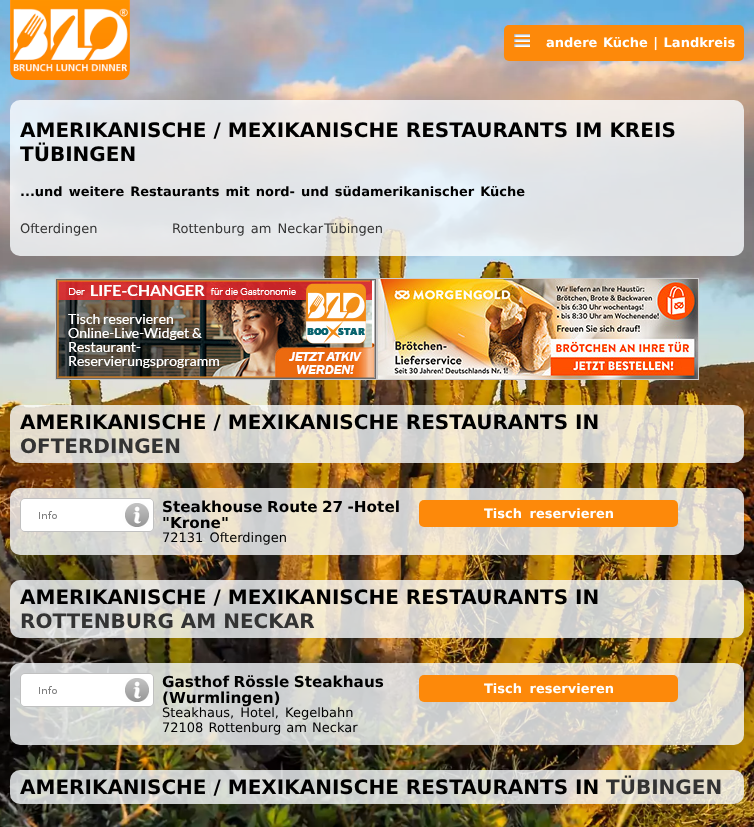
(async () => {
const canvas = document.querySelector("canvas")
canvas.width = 754
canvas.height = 827
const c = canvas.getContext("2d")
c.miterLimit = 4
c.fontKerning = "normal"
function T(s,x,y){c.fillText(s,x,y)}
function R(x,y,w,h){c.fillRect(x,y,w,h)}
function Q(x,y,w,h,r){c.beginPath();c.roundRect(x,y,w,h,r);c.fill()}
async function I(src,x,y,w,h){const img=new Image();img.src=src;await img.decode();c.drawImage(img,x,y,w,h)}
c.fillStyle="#fff"
R(0,0,754,827)
await I("1.png",0,0,754,827)
await I("2.png",10,0,120,80)
c.fillStyle="#fd890a"
Q(504,25,240,36,5)
await I("3.png",514,34,16,13)
c.wordSpacing="1px"
c.font="bold 13px DejaVu Sans"
c.fillStyle="#fff"
T("andere Küche | Landkreis",546,47)
c.fillStyle="#f9fcffcc"
Q(10,100,734,156,10)
c.wordSpacing="0px"
c.font="bold 20px DejaVu Sans"
c.fillStyle="#000"
T("AMERIKANISCHE / MEXIKANISCHE RESTAURANTS IM KREIS",20,137)
T("TÜBINGEN",20,161)
c.wordSpacing="1.5px"
c.font="bold 13px DejaVu Sans"
T("...und weitere Restaurants mit nord- und südamerikanischer Küche",20,196)
c.wordSpacing="0px"
c.font="13px DejaVu Sans"
c.fillStyle="#333"
T("Ofterdingen",20,233)
c.wordSpacing="2px"
T("Rottenburg am Neckar",172,233)
c.wordSpacing="0px"
T("Tübingen",324,233)
c.strokeStyle="#ccc"
c.strokeRect(55.5,278.5,321,101)
await I("4.png",56,279,320,100)
c.strokeRect(377.5,278.5,321,101)
await I("5.png",378,279,320,100)
c.fillStyle="#f9fcffcc"
Q(10,405,734,58,10)
c.font="bold 20px DejaVu Sans"
c.fillStyle="#000"
T("AMERIKANISCHE / MEXIKANISCHE RESTAURANTS IN",20,429)
c.fillStyle="#333"
T("OFTERDINGEN",20,453)
c.fillStyle="#f9fcffcc"
Q(10,488,734,67,10)
c.beginPath()
c.roundRect(20.5,498.5,133,33,4.5)
c.strokeStyle="#c0c0c0"
c.stroke()
await I("6.png",21,499,132,32)
c.wordSpacing="-1px"
c.font="bold 15.25px DejaVu Sans"
c.fillStyle="#000"
T("Steakhouse Route 27 -Hotel",162,512)
c.wordSpacing="0px"
T("\"Krone\"",162,528)
c.wordSpacing="2px"
c.font="13px DejaVu Sans"
T("72131 Ofterdingen",162,542)
c.fillStyle="#fd890a"
Q(419,500,259,27,5)
c.wordSpacing="3px"
c.font="bold 13px DejaVu Sans"
c.fillStyle="#fff"
T("Tisch reservieren",484,518)
c.fillStyle="#f9fcffcc"
Q(10,580,734,58,10)
c.wordSpacing="0px"
c.font="bold 20px DejaVu Sans"
c.fillStyle="#000"
T("AMERIKANISCHE / MEXIKANISCHE RESTAURANTS IN",20,604)
c.fillStyle="#333"
T("ROTTENBURG AM NECKAR",20,628)
c.fillStyle="#f9fcffcc"
Q(10,663,734,82,10)
c.beginPath()
c.roundRect(20.5,673.5,133,33,4.5)
c.stroke()
await I("7.png",21,674,132,32)
c.wordSpacing="-1px"
c.font="bold 15.25px DejaVu Sans"
c.fillStyle="#000"
T("Gasthof Rössle Steakhaus",162,687)
c.wordSpacing="0px"
T("(Wurmlingen)",162,703)
c.wordSpacing="2px"
c.font="13px DejaVu Sans"
T("Steakhaus, Hotel, Kegelbahn",162,717)
c.wordSpacing="1px"
T("72108 Rottenburg am Neckar",162,732)
c.fillStyle="#fd890a"
Q(419,675,259,27,5)
c.wordSpacing="3px"
c.font="bold 13px DejaVu Sans"
c.fillStyle="#fff"
T("Tisch reservieren",484,693)
c.fillStyle="#f9fcffcc"
Q(10,770,734,34,10)
c.wordSpacing="0px"
c.font="bold 20px DejaVu Sans"
c.fillStyle="#000"
T("AMERIKANISCHE / MEXIKANISCHE RESTAURANTS IN",20,794)
c.fillStyle="#333"
T("TÜBINGEN",606,794)
})()
